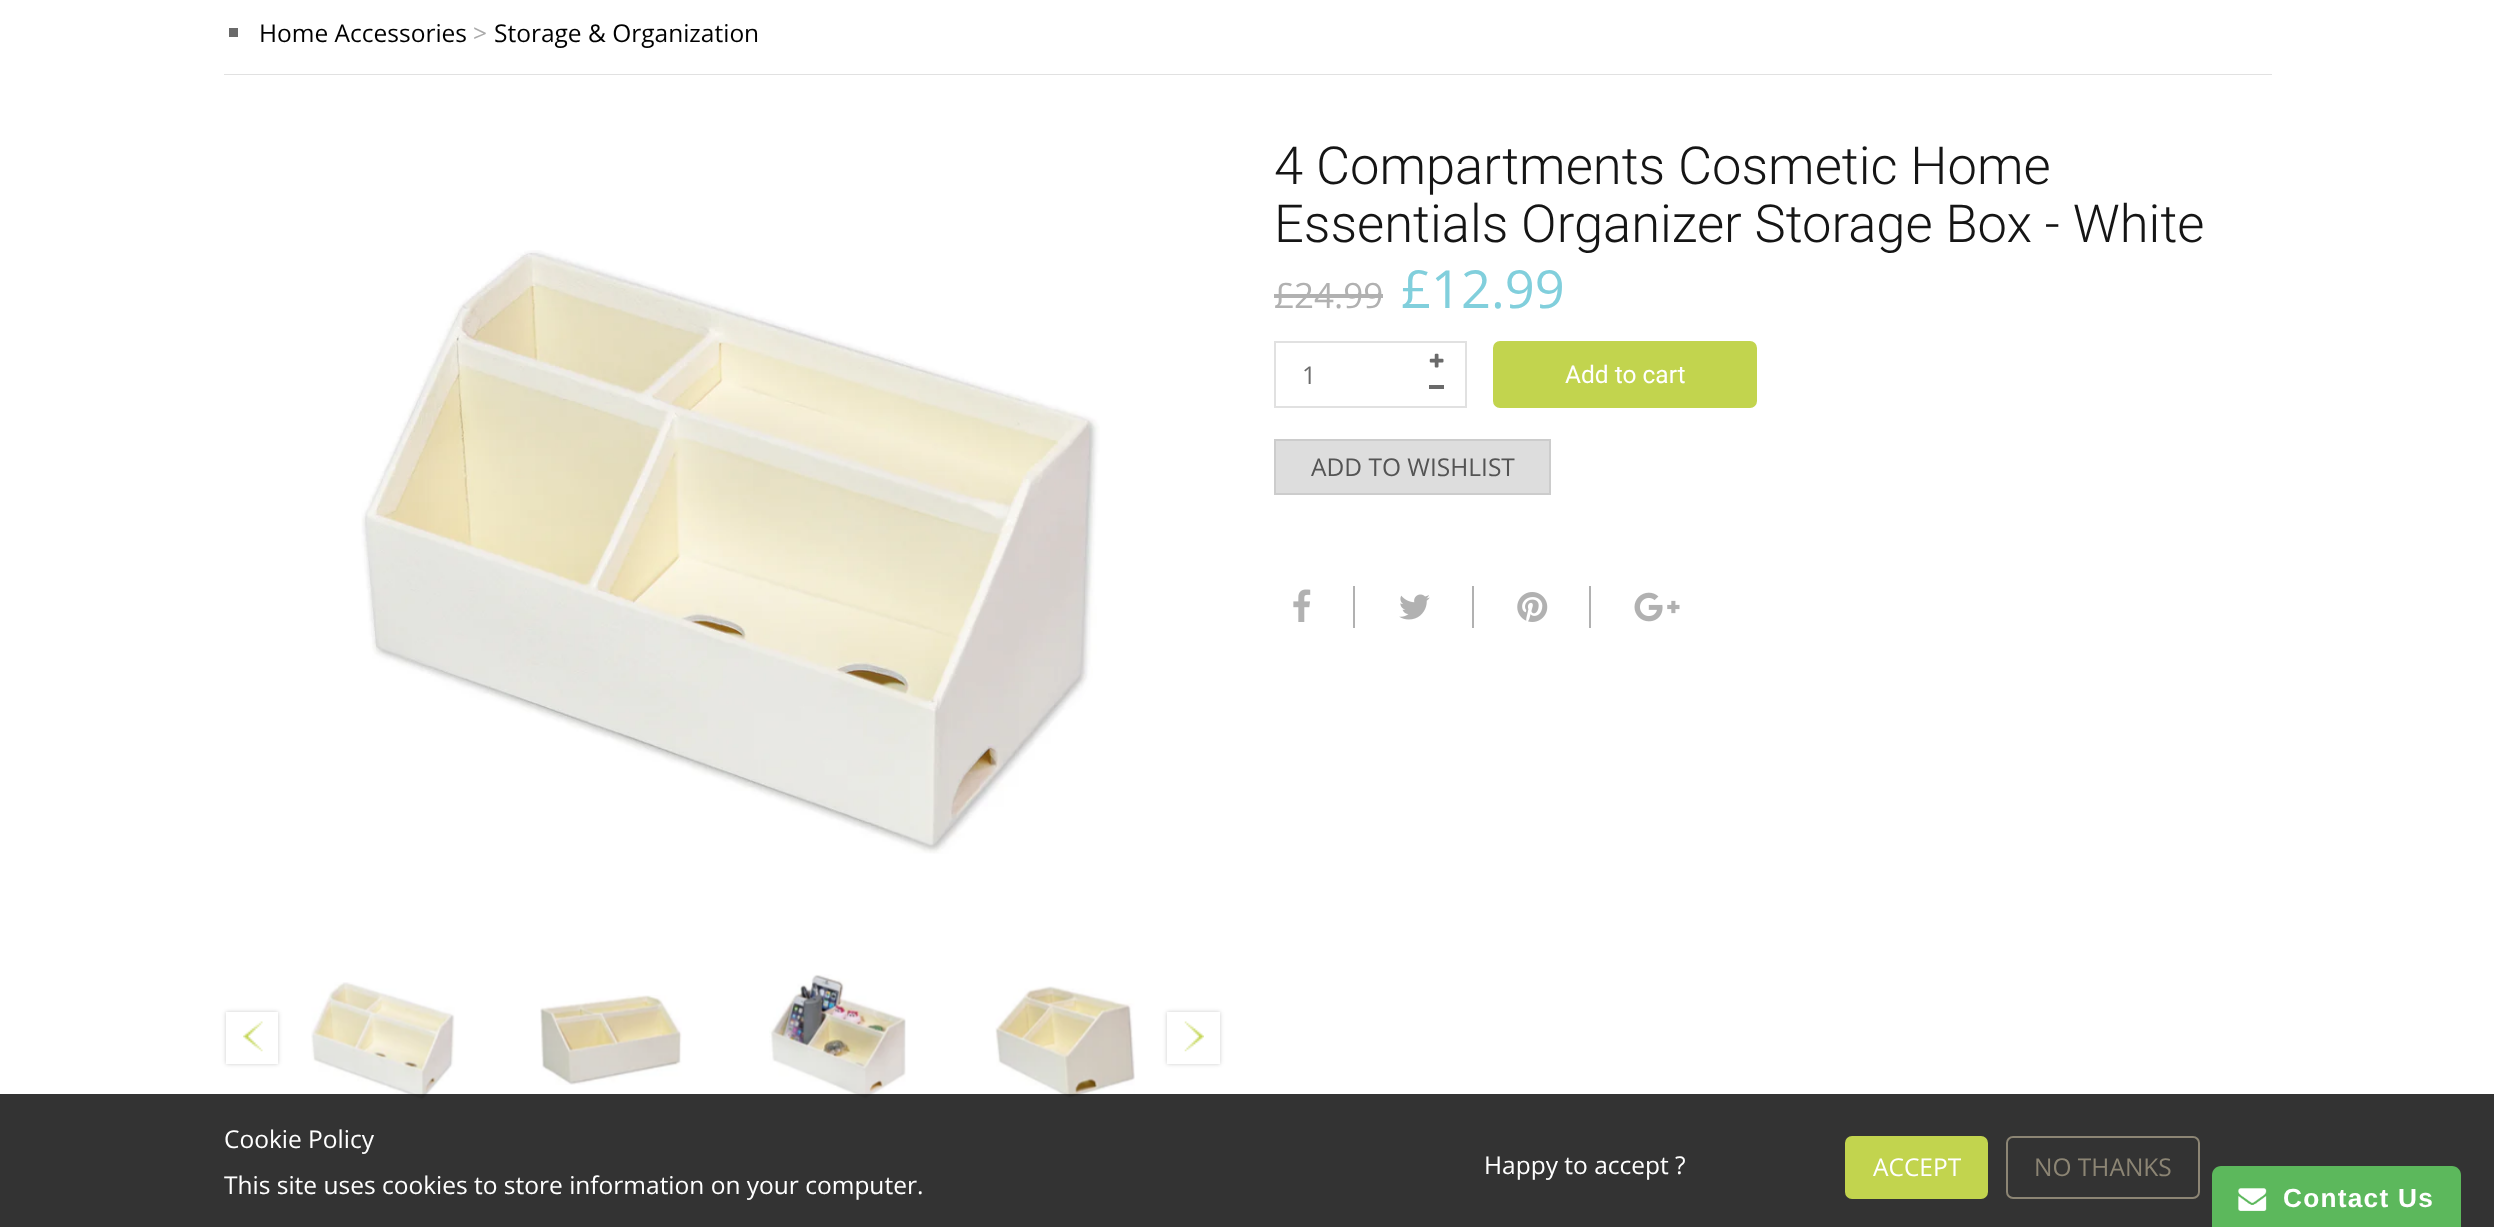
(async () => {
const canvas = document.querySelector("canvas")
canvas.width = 2494
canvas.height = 1227
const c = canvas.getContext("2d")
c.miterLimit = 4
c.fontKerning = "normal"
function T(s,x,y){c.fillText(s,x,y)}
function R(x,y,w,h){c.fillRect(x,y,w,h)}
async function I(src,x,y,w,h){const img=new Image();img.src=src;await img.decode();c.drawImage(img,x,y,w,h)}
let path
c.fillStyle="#fff"
R(0,0,2494,1227)
c.fillStyle="#6a6a6a"
R(229,28,9,9)
c.font="24.5px Open Sans"
c.fillStyle="#000"
T("Home Accessories",259,42)
c.fillStyle="#aaa"
T(">",473,42)
c.fillStyle="#000"
T("Storage & Organization",494,42)
c.fillStyle="#e1e1e1"
R(224,74,2048,1)
await I("1.png",361,250,739,604)
await I("2.png",311,982,144,118)
await I("3.png",540,995,142,90)
await I("4.png",769,974,137,125)
await I("5.png",995,986,140,113)
c.save()
path = new Path2D("M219 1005h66v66h-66zm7 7h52v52h-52z")
c.clip(path,"evenodd")
c.fillStyle="#00000033"
c.filter="blur(2px)"
c.beginPath()
c.rect(226,1012,52,52)
c.fill()
c.filter="none"
c.restore()
await I("6.png",243,1021,20,31)
c.save()
path = new Path2D("M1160 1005h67v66h-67zm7 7h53v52h-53z")
c.clip(path,"evenodd")
c.fillStyle="#00000033"
c.filter="blur(2px)"
c.beginPath()
c.rect(1167,1012,53,52)
c.fill()
c.filter="none"
c.restore()
await I("7.png",1184,1021,20,31)
c.font="300 52.5px Roboto"
c.fillStyle="#151515"
T("4 Compartments Cosmetic Home",1274,184)
T("Essentials Organizer Storage Box - White",1274,242)
c.font="35px Open Sans"
c.fillStyle="#b1b1b1"
T("£24.99",1274,308)
R(1274,294,109,4)
c.font="52.5px Open Sans"
c.fillStyle="#81cfdc"
T("£12.99",1401,308)
c.strokeStyle="#e1e1e1"
c.lineWidth=2
c.strokeRect(1275,342,191,65)
c.font="24.5px Open Sans"
c.fillStyle="#6a6a6a"
T("1",1302,384)
await I("8.png",1429,353,15,15)
R(1429,385,15,4)
c.fillStyle="#c2d44e"
c.beginPath()
c.roundRect(1494,342,262,65,6)
c.fill()
c.strokeStyle="#c2d44e"
c.stroke()
c.font="24.5px Roboto"
c.fillStyle="#fff"
T("Add to cart",1565,383)
c.fillStyle="#ddd"
c.beginPath()
c.rect(1275,440,275,54)
c.fill()
c.strokeStyle="#ccc"
c.stroke()
c.font="24.5px Open Sans"
c.fillStyle="#545454"
T("ADD TO WISHLIST",1311,476)
await I("9.png",1293,589,18,33)
c.fillStyle="#b1b1b1"
R(1353,586,2,42)
await I("10.png",1399,594,31,26)
R(1472,586,2,42)
await I("11.png",1517,592,31,30)
R(1589,586,2,42)
await I("12.png",1634,592,46,30)
c.fillStyle="#000000cc"
R(0,1094,2494,133)
c.fillStyle="#fff"
T("Cookie Policy",224,1148)
T("Happy to accept ?",1484,1174)
c.fillStyle="#c2d44e"
c.beginPath()
c.roundRect(1846,1137,141,61,6)
c.fill()
c.strokeStyle="#c2d44e"
c.stroke()
c.fillStyle="#fff"
T("ACCEPT",1873,1176)
c.beginPath()
c.roundRect(2007,1137,192,61,6)
c.strokeStyle="#8c8574"
c.stroke()
c.fillStyle="#8c8574"
T("NO THANKS",2034,1176)
c.fillStyle="#fff"
T("This site uses cookies to store information on your computer.",224,1194)
c.fillStyle="#5cb85c"
path = new Path2D("M2221 1166h231c5 0 9 4 9 9v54h-249v-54c0-5 4-9 9-9z")
c.fill(path)
await I("13.png",2238,1188,29,23)
c.letterSpacing="1.25px"
c.font="bold 26.25px Liberation Sans"
c.fillStyle="#fff"
T("Contact Us",2283,1207)
})()
